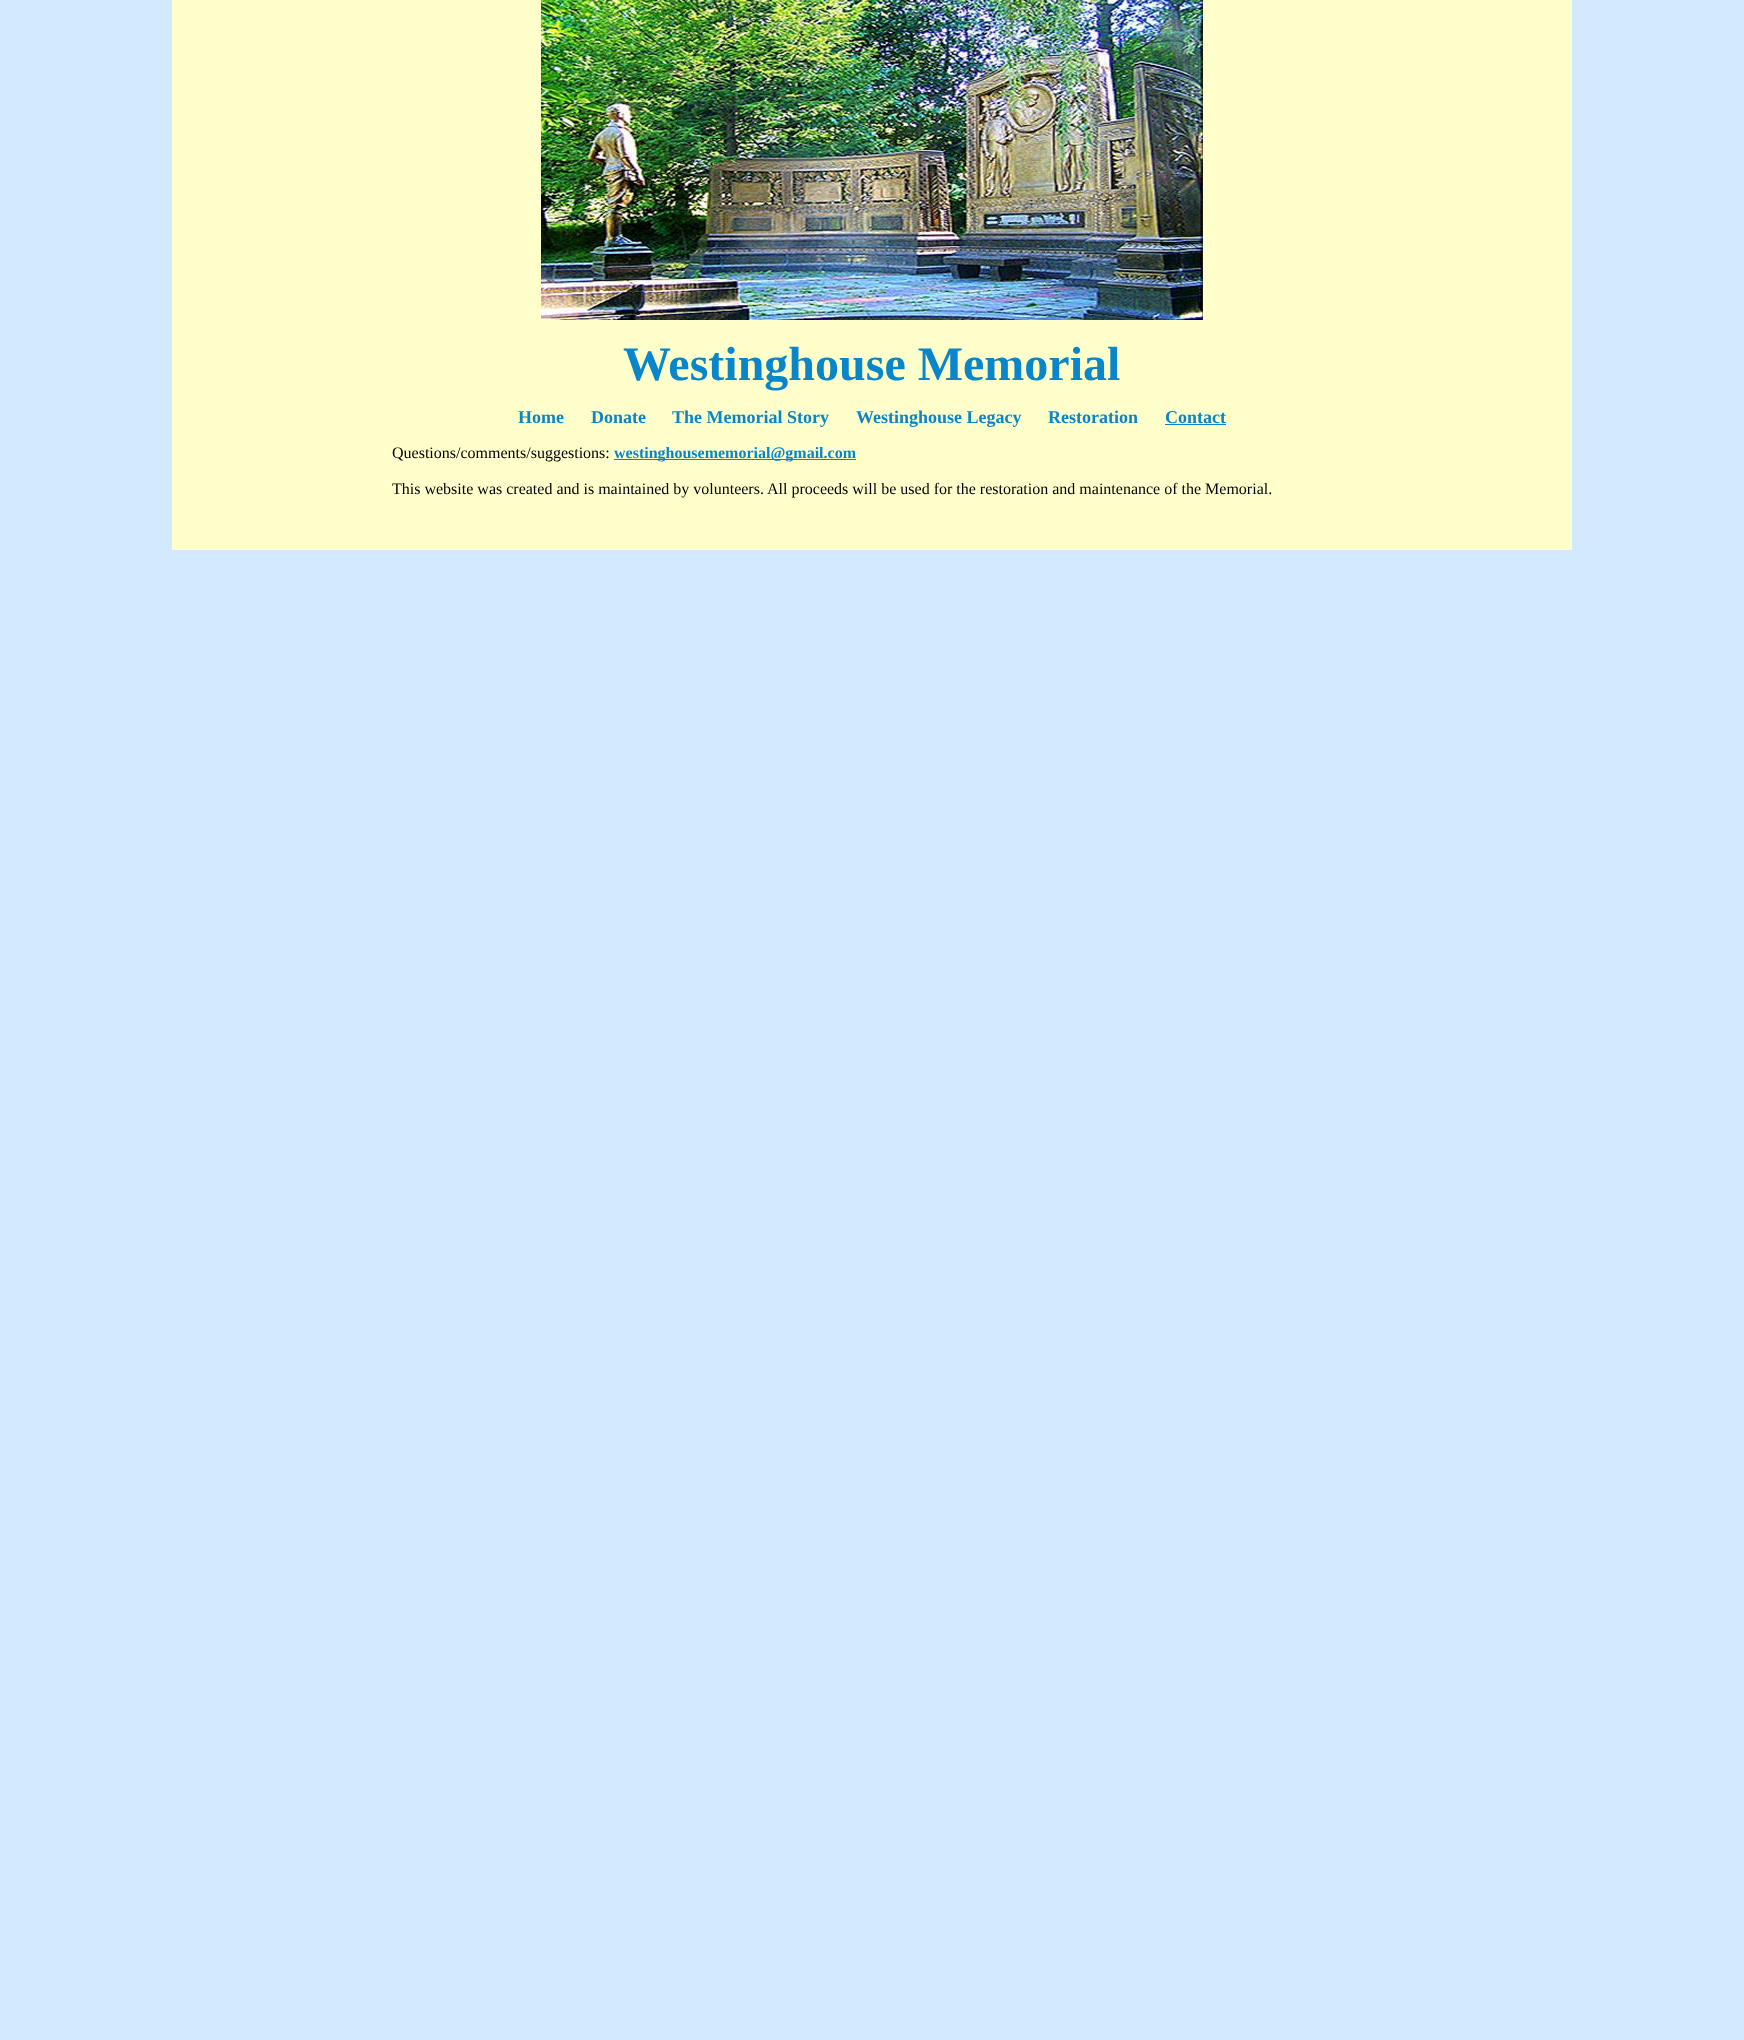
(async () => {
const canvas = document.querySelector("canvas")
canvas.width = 1744
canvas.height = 2040
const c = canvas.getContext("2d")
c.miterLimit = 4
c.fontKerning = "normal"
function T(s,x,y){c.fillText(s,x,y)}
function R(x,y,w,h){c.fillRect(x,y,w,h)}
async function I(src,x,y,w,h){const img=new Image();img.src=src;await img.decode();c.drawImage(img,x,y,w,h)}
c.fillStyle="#d2e9ff"
R(0,0,1744,2040)
c.fillStyle="#ffc"
R(172,0,1400,550)
await I("1.png",541,0,662,320)
c.font="bold 48px Liberation Serif"
c.fillStyle="#0986ca"
T("Westinghouse Memorial",623,380)
c.font="bold 18px Liberation Serif"
T("Home",518,423)
T("Donate",591,423)
T("The Memorial Story",672,423)
T("Westinghouse Legacy",856,423)
T("Restoration",1048,423)
T("Contact",1165,423)
R(1165,424,61,1)
c.font="16px Liberation Serif"
c.fillStyle="#000"
T("Questions/comments/suggestions:",392,458)
c.fillStyle="#0986ca"
R(614,459,242,1)
c.font="bold 16px Liberation Serif"
T("westinghousememorial@gmail.com",614,458)
c.font="16px Liberation Serif"
c.fillStyle="#000"
T("This website was created and is maintained by volunteers. All proceeds will be used for the restoration and maintenance of the Memorial.",392,494)
})()
